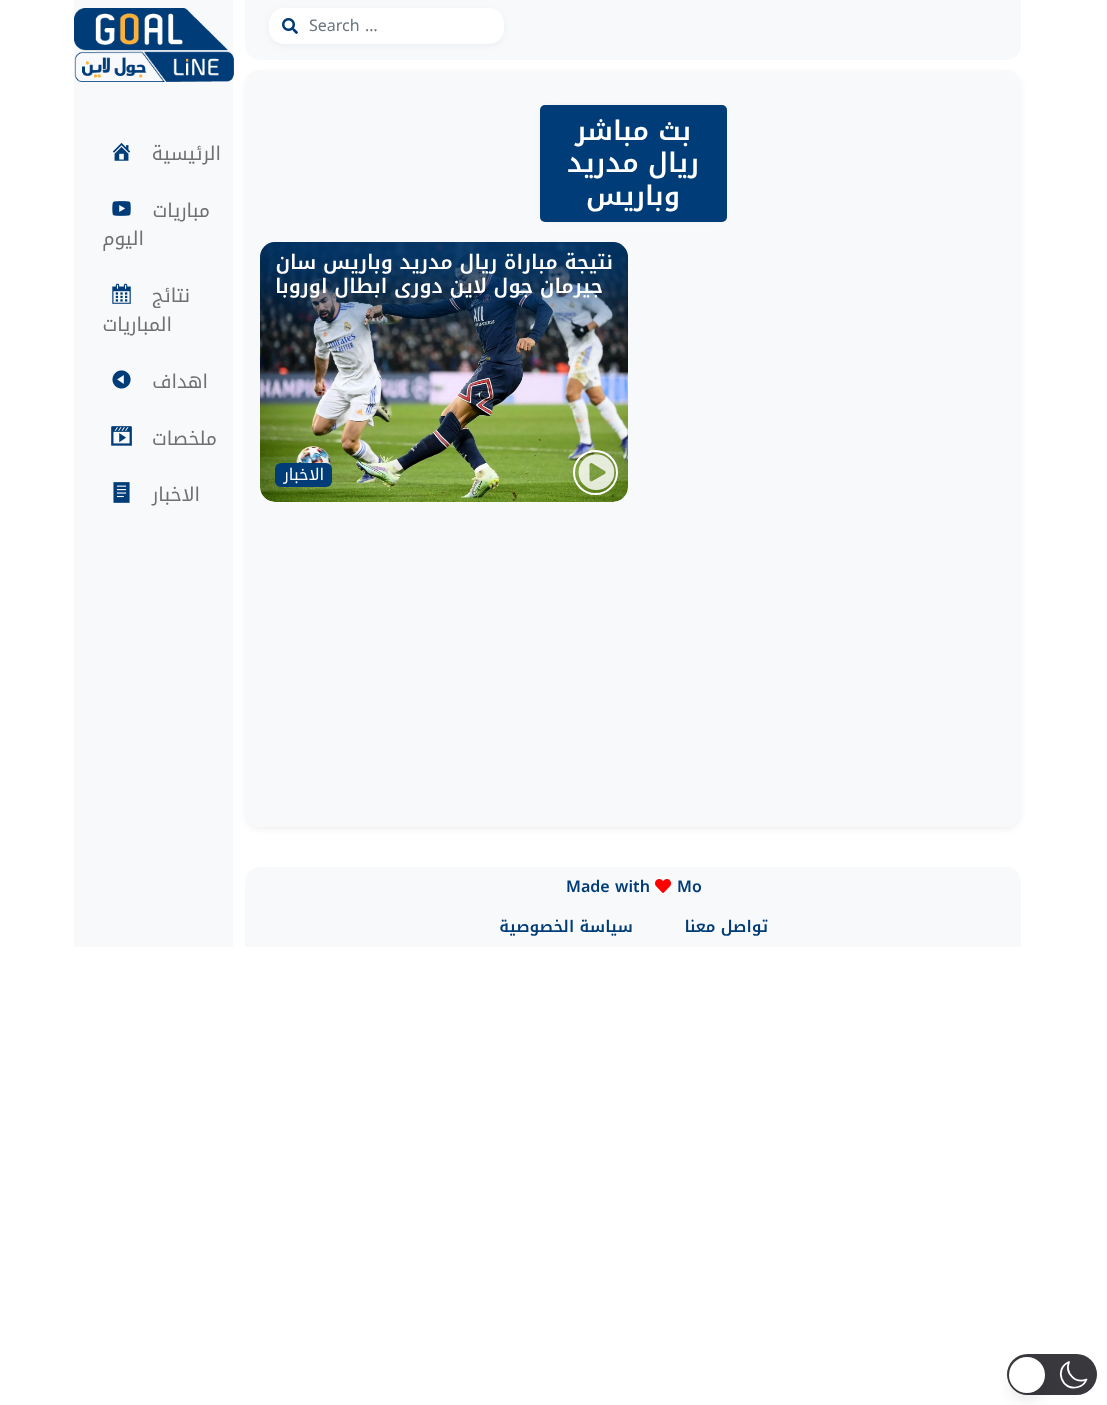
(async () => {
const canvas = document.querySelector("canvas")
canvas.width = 1107
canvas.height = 1405
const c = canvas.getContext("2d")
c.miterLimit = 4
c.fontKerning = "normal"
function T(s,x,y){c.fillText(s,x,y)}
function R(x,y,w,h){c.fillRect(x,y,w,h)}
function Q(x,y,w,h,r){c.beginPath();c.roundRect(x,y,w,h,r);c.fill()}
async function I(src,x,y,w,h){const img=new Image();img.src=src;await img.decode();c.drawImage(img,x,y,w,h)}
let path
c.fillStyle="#fff"
R(0,0,1107,1405)
c.fillStyle="#f8f9fa"
c.beginPath()
c.roundRect(245,0,776,60,[0,0,15,15])
c.fill()
c.fillStyle="#e9ebef"
c.filter="blur(3.5px)"
c.beginPath()
c.roundRect(270,11,233,34,14)
c.fill()
c.filter="none"
c.fillStyle="#fff"
Q(269,8,235,36,15)
c.font="16px Noto Kufi Arabic"
c.fillStyle="#6c757d"
T("Search …",309,31)
await I("1.png",282,18,16,16)
c.fillStyle="#0000001a"
c.filter="blur(4px)"
c.beginPath()
c.roundRect(248,76,770,751,12)
c.fill()
c.filter="none"
c.fillStyle="#f8f9fa"
Q(245,70,776,757,15)
c.fillStyle="#c5c5c5"
c.filter="blur(5px)"
c.beginPath()
c.rect(546,111,175,105)
c.fill()
c.filter="none"
c.fillStyle="#003c77"
Q(540,105,187,117,5)
c.direction="rtl"
c.font="600 27px Noto Kufi Arabic"
c.fillStyle="#fff"
T("بث مباشر",691,140)
T("ريال مدريد",699,172)
T("وباريس",680,205)
await I("2.png",260,242,368,260)
c.fillStyle="#f8f9fa"
R(74,0,159,947)
await I("6.png",112,142,19,19)
await I("7.png",112,201,19,15)
await I("8.png",112,283,19,21)
await I("9.png",112,370,19,19)
c.save()
c.beginPath()
c.roundRect(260,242,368,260,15)
c.clip()
c.fillStyle="#003c77"
c.filter="blur(36px)"
c.beginPath()
c.rect(215,203,458,90)
c.fill()
c.filter="none"
c.restore()
c.font="600 20px Noto Kufi Arabic"
c.fillStyle="#fff"
T("نتيجة مباراة ريال مدريد وباريس سان",613,269)
c.save()
c.beginPath()
c.rect(275,250,353,48)
c.clip()
T("جيرمان جول لاين دوري ابطال اوروبا",603,293)
c.restore()
await I("3.png",578,454,37,36)
c.beginPath()
c.arc(595.5,472.5,21.5,0,7)
c.strokeStyle="#fff"
c.lineWidth=2
c.stroke()
c.fillStyle="#003c77"
Q(275,463,57,24,6)
c.font="16px Noto Kufi Arabic"
c.fillStyle="#fff"
T("الاخبار",324,480)
c.fillStyle="#f8f9fa"
c.beginPath()
c.roundRect(245,867,776,80,[15,15,0,0])
c.fill()
c.direction="ltr"
c.font="600 16px Noto Kufi Arabic"
c.fillStyle="#003c77"
T("Mo",677,892)
await I("4.png",655,879,16,14)
T("Made with",566,892)
c.direction="rtl"
T("تواصل معنا",768,932)
T("سياسة الخصوصية",633,932)
c.fillStyle="#39393d"
Q(1007,1354,90,41,20.5)
path = new Path2D("M1086.5 1379.5c-11 4.5-22-6.5-17.5-17.5c-15.5 6.5-7 30 9 25c4-1 7-4 8.5-7.5z")
c.lineWidth=1.8
c.lineCap="round"
c.lineJoin="round"
c.stroke(path)
c.fillStyle="#0000001a"
c.filter="blur(7.5px)"
c.beginPath()
c.roundRect(1012,1370,30,30,15)
c.fill()
c.filter="none"
c.fillStyle="#fff"
c.beginPath()
c.arc(1027,1375,18,0,7)
c.fill()
await I("5.png",74,8,160,74)
c.font="19px Noto Kufi Arabic"
c.fillStyle="#707071"
T("الرئيسية",221,160)
T("مباريات",210,217)
T("اليوم",144,245)
T("نتائج",190,302)
T("المباريات",172,331)
T("اهداف",208,388)
T("ملخصات",217,445)
await I("10.png",111,426,21,20)
T("الاخبار",200,501)
await I("11.png",113,482,17,21)
})()
